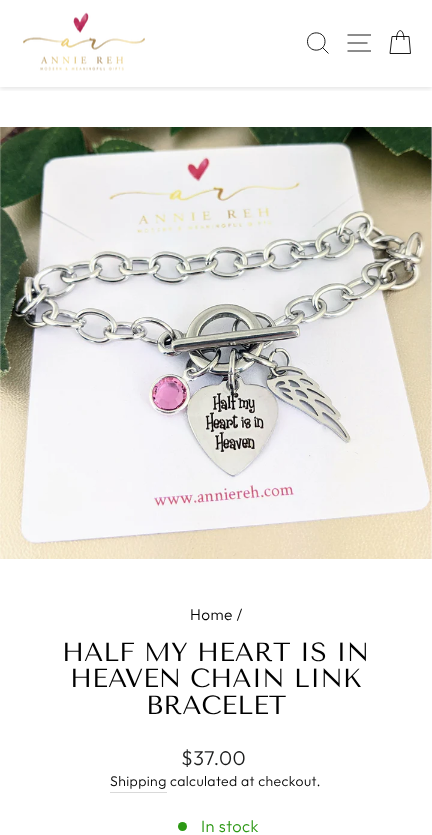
(async () => {
const canvas = document.querySelector("canvas")
canvas.width = 432
canvas.height = 835
const c = canvas.getContext("2d")
c.miterLimit = 4
c.fontKerning = "normal"
function T(s,x,y){c.fillText(s,x,y)}
function R(x,y,w,h){c.fillRect(x,y,w,h)}
async function I(src,x,y,w,h){const img=new Image();img.src=src;await img.decode();c.drawImage(img,x,y,w,h)}
let path
c.fillStyle="#fff"
R(0,0,432,835)
c.save()
c.beginPath()
c.rect(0,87,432,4)
c.clip()
c.fillStyle="#0000001a"
c.filter="blur(2.5px)"
c.beginPath()
c.rect(0,2,432,87)
c.fill()
c.filter="none"
c.restore()
await I("1.png",23,12,122,59)
path = new Path2D("M325 41.5c0 11.5-17.5 11.5-17.5 0c0-11.5 17.5-11.5 17.5 0zm3.5 12l-6-6")
c.strokeStyle="#000"
c.lineWidth=0.9
c.stroke(path)
path = new Path2D("M347.5 35h23.5m-23.5 8h20m-20 8h23.5m25.5-11c0-12.5 7.5-12.5 7.5 0")
c.stroke(path)
path = new Path2D("M392 36.5h17l1.5 17h-20.5z")
c.stroke(path)
await I("2.png",0,127,432,432)
c.letterSpacing="0.4px"
c.font="300 15.5px Outfit"
c.fillStyle="#000"
T("Home /",190,620)
c.letterSpacing="0px"
c.font="26.25px Tenor Sans"
T("HALF MY HEART IS IN",62,661)
T("HEAVEN CHAIN LINK",70,687)
T("BRACELET",146,714)
c.letterSpacing="0.4px"
c.font="300 20px Outfit"
c.fillStyle="#1c1d1d"
T("$37.00",181,765)
c.fillStyle="#d9d9d9"
R(110,792,57,1)
c.font="300 14px Outfit"
c.fillStyle="#000"
T("Shipping",110,786)
T("calculated at checkout.",170,786)
c.fillStyle="#2c9814"
c.beginPath()
c.arc(182.5,826.5,4.5,0,7)
c.fill()
c.font="300 16.5px Outfit"
T("In stock",201,832)
})()
